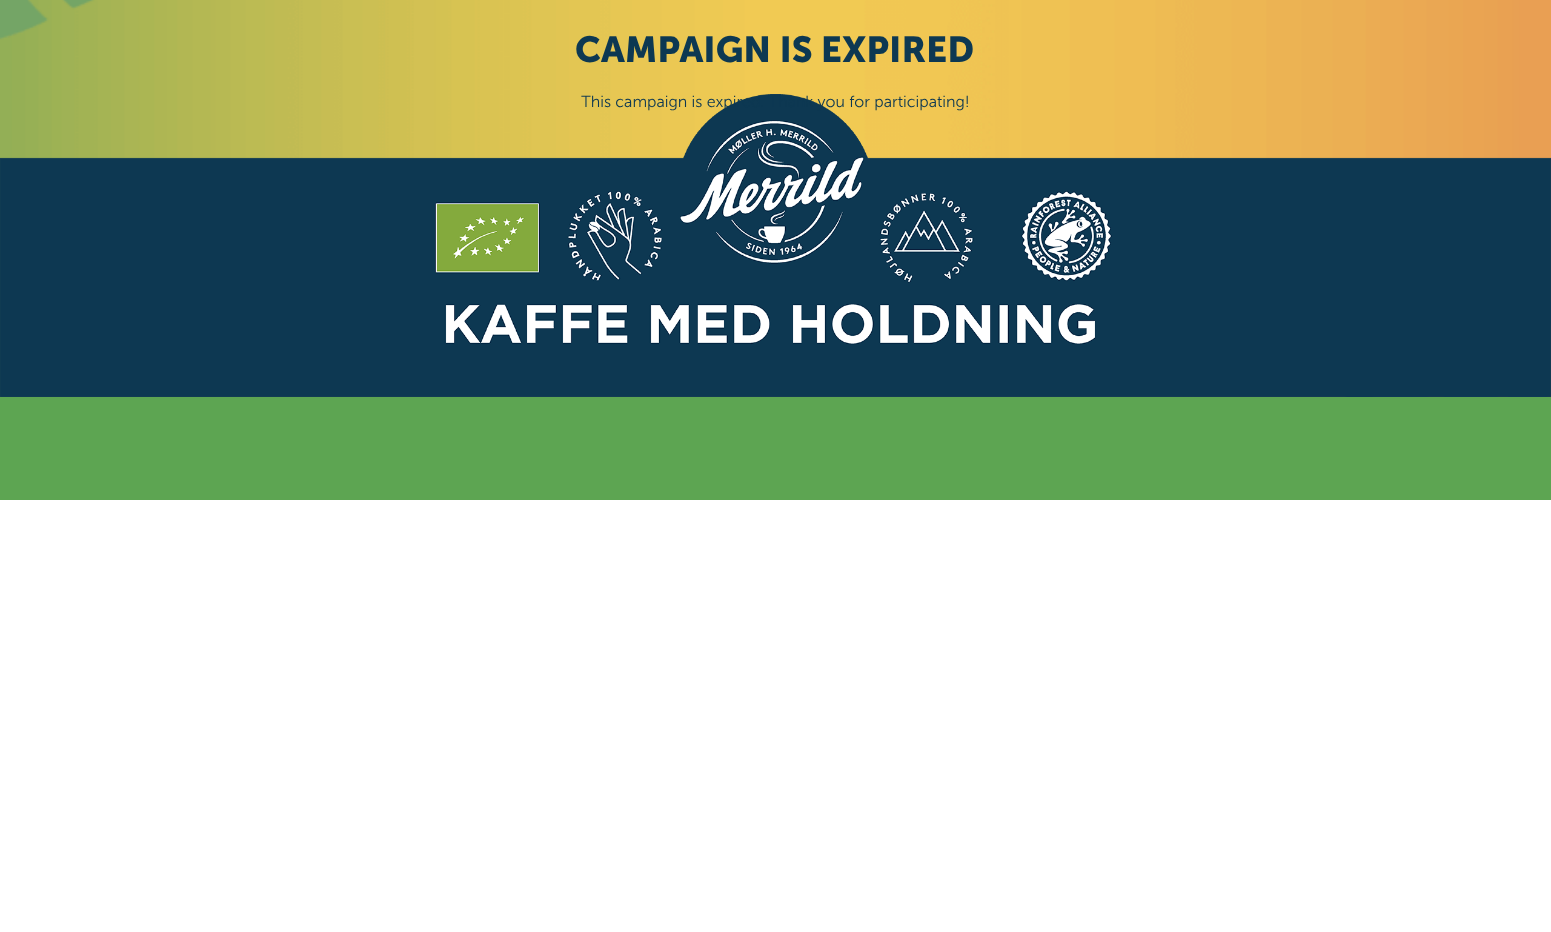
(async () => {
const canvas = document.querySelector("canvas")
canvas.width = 1551
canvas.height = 932
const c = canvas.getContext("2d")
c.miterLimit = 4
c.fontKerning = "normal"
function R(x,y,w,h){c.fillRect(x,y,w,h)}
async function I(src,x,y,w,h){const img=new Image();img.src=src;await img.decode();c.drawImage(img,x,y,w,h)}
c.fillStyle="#fff"
R(0,0,1551,932)
await I("1.png",0,0,1551,500)
})()
